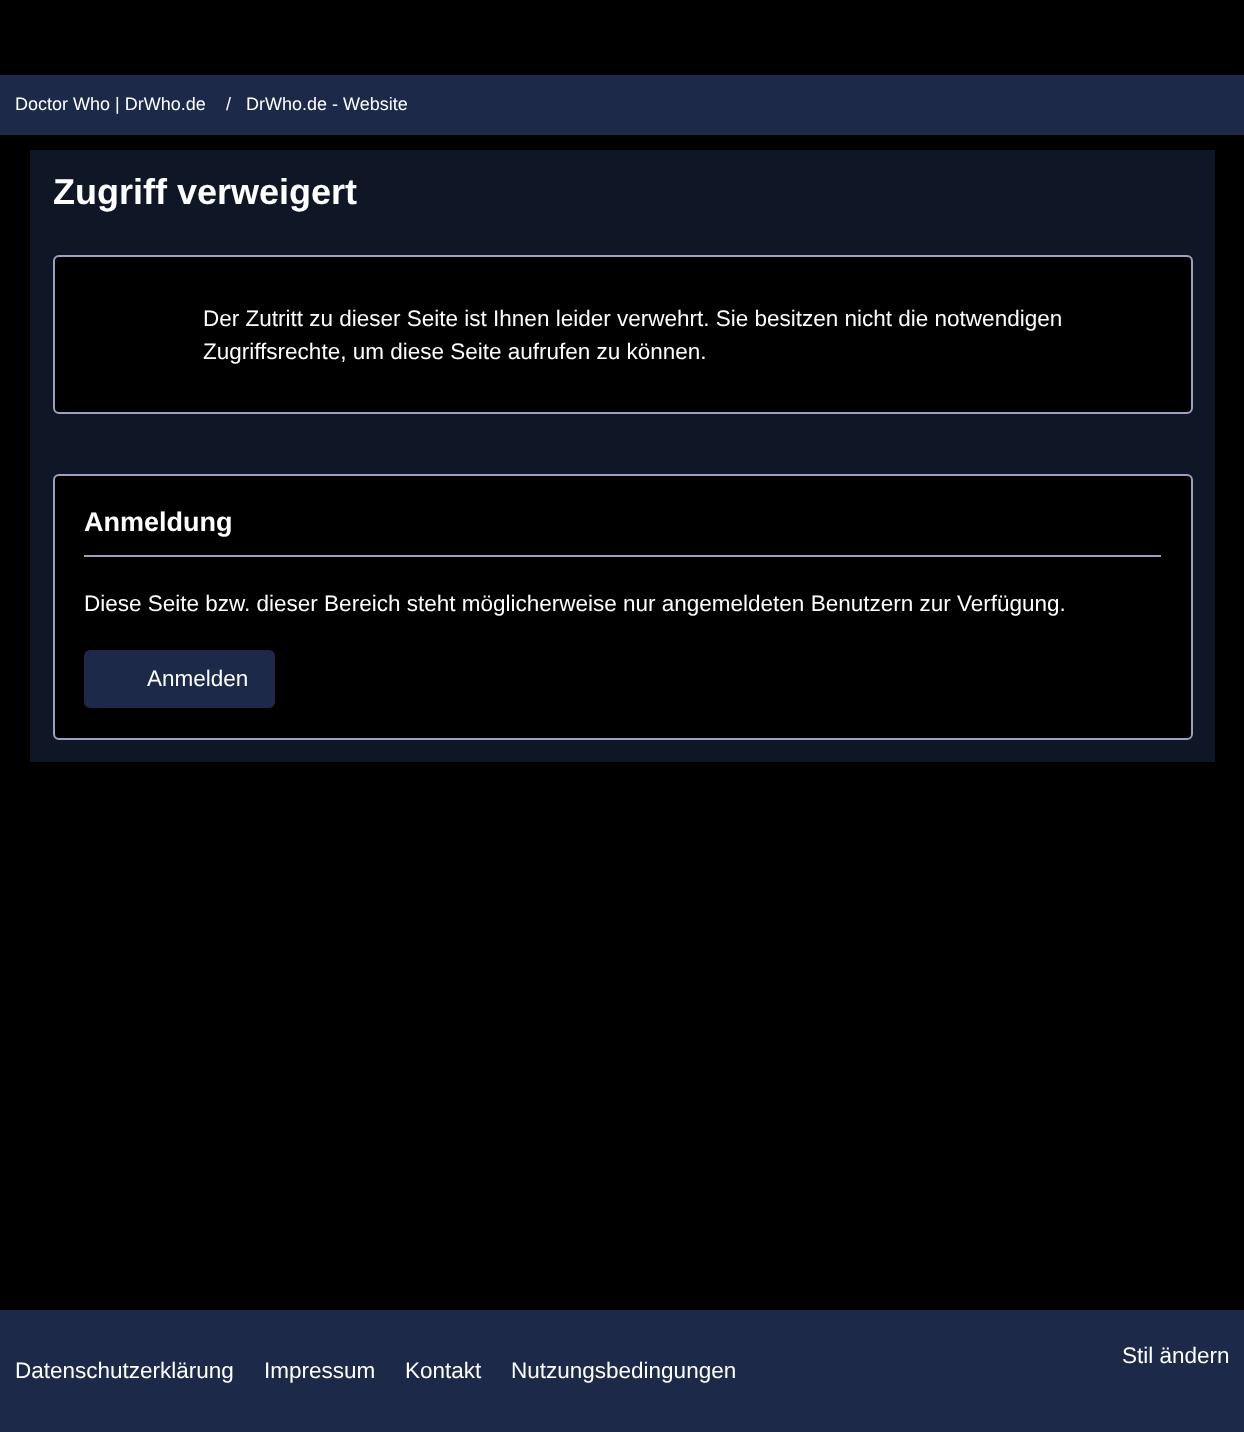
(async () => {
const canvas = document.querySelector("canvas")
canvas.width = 1244
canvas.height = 1432
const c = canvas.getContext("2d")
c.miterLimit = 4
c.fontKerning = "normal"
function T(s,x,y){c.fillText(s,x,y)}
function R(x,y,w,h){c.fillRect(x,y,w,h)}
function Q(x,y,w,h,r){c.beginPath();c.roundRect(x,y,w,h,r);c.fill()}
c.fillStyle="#000"
R(0,0,1244,1432)
c.fillStyle="#1c2948"
R(0,75,1244,60)
c.font="18px Liberation Sans"
c.fillStyle="#fff"
T("Doctor Who | DrWho.de",15,110)
T("/",226,110)
T("DrWho.de - Website",246,110)
c.fillStyle="#0f1727"
R(30,150,1185,612)
c.font="bold 36px Liberation Sans"
c.fillStyle="#fff"
T("Zugriff verweigert",53,204)
c.fillStyle="#000"
c.beginPath()
c.roundRect(54,256,1138,157,5)
c.fill()
c.strokeStyle="#9fa0c1"
c.lineWidth=2
c.stroke()
c.font="22.5px Liberation Sans"
c.fillStyle="#fff"
T("Der Zutritt zu dieser Seite ist Ihnen leider verwehrt. Sie besitzen nicht die notwendigen",203,326)
T("Zugriffsrechte, um diese Seite aufrufen zu können.",203,359)
c.fillStyle="#000"
c.beginPath()
c.roundRect(54,475,1138,264,5)
c.fill()
c.stroke()
c.fillStyle="#9fa0c1"
R(84,555,1077,2)
c.font="bold 27px Liberation Sans"
c.fillStyle="#fff"
T("Anmeldung",84,531)
c.font="22.5px Liberation Sans"
T("Diese Seite bzw. dieser Bereich steht möglicherweise nur angemeldeten Benutzern zur Verfügung.",84,611)
c.fillStyle="#1c2948"
Q(84,650,191,58,6)
c.fillStyle="#fff"
T("Anmelden",147,686)
c.fillStyle="#1c2948"
R(0,1310,1244,122)
c.fillStyle="#fff"
T("Stil ändern",1122,1363)
T("Datenschutzerklärung",15,1378)
T("Impressum",264,1378)
T("Kontakt",405,1378)
T("Nutzungsbedingungen",511,1378)
})()
